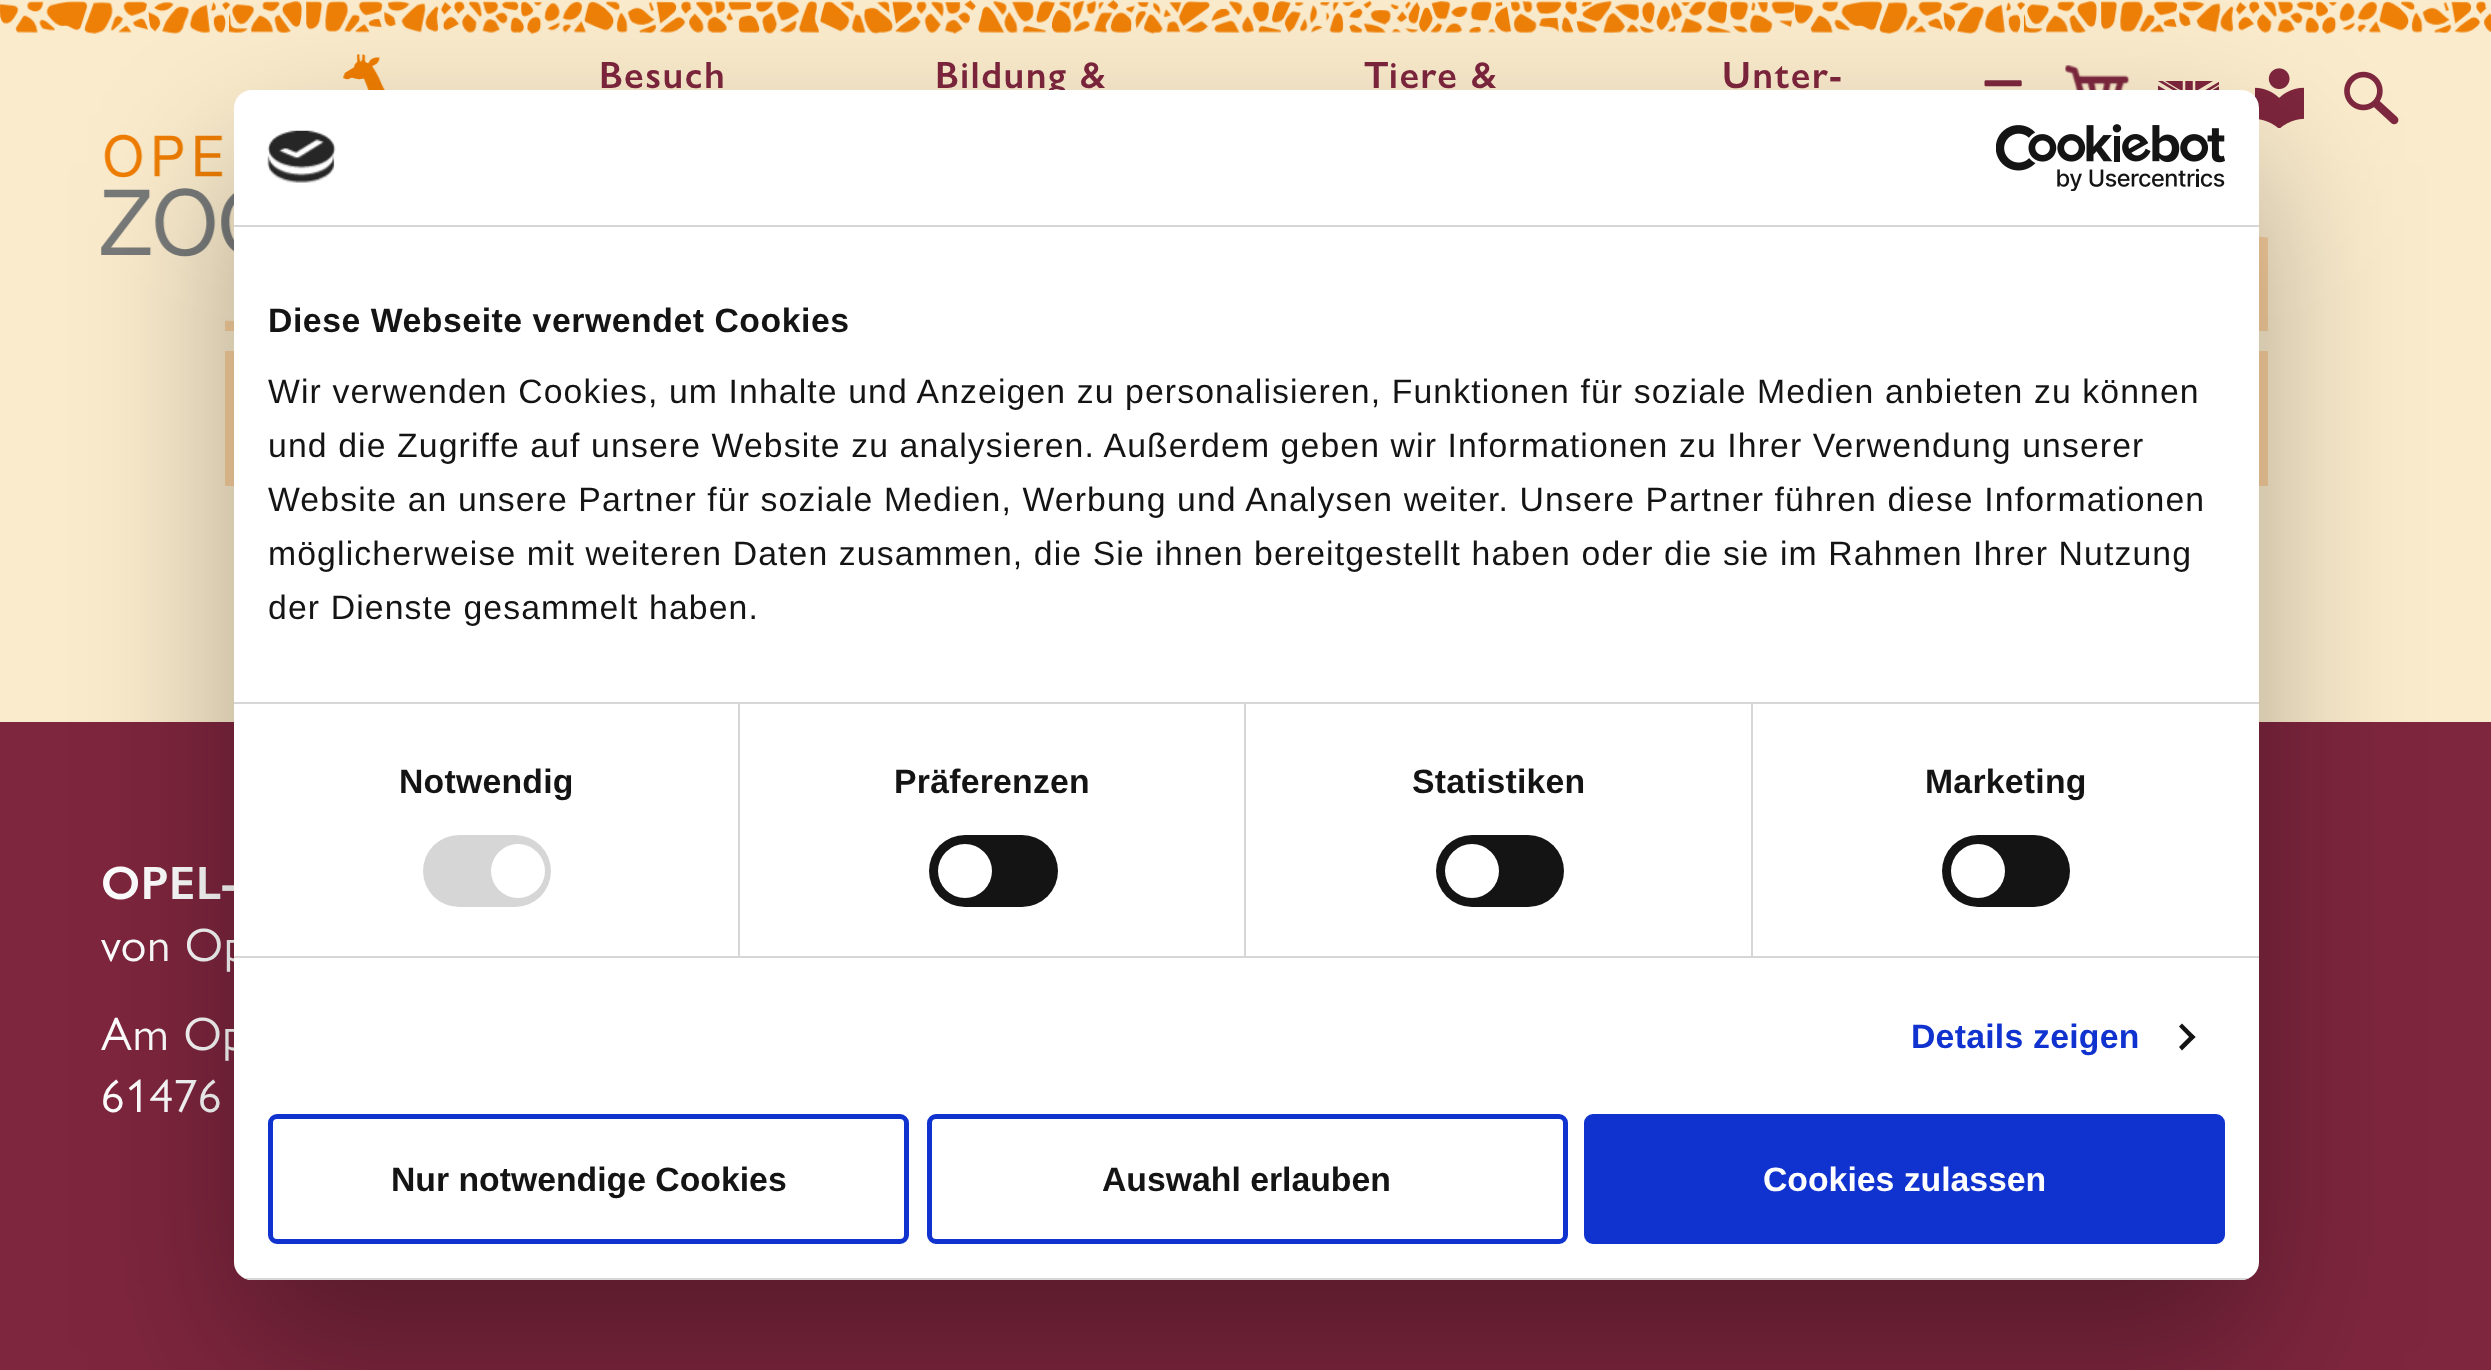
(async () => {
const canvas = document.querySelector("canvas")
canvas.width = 2491
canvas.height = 1370
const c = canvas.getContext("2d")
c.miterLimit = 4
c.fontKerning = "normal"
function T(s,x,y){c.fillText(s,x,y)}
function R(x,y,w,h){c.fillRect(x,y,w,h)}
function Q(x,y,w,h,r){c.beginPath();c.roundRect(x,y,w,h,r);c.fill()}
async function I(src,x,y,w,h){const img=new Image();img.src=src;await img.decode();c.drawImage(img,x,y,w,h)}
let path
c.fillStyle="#faebcc"
R(0,0,2491,1370)
c.fillStyle="#f8cf9d"
R(225,236,2043,95)
c.fillStyle="#faebcc"
path = new Path2D("M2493-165v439c-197-47-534-64-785-64c-385 0-1043 112-1415 112c-163 0-293-21-293-21v-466z")
c.fill(path,"evenodd")
await I("1.png",0,0,2491,34)
await I("2.png",101,54,285,203)
c.letterSpacing="1.5px"
c.font="600 38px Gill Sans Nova"
c.fillStyle="#7e263e"
T("Besuch",599,88)
T("Bildung &",935,88)
T("Tiere &",1364,88)
T("Unter-",1722,88)
await I("3.png",1984,80,38,7)
await I("4.png",2065,65,65,25)
await I("5.png",2158,81,61,9)
await I("6.png",2255,68,49,60)
await I("7.png",2344,71,55,54)
c.fillStyle="#f8cf9d"
R(225,351,2043,135)
c.fillStyle="#7e263e"
R(0,722,2491,648)
c.letterSpacing="0.75px"
c.font="600 47px Gill Sans Nova"
c.fillStyle="#fff"
T("OPEL-",101,899)
c.font="47px Gill Sans Nova"
T("von Op",101,961)
T("Am Op",101,1050)
T("61476",101,1112)
c.fillStyle="#0000004d"
c.filter="blur(76.5px)"
c.beginPath()
c.roundRect(234,162,2025,1190,18)
c.fill()
c.filter="none"
c.fillStyle="#fff"
Q(234,90,2025,1190,18)
c.fillStyle="#d6d6d6"
R(234,225,2025,2)
await I("8.png",267,130,69,53)
await I("9.png",1996,124,229,67)
R(234,702,2025,2)
c.letterSpacing="0.55px"
c.font="bold 33.75px Liberation Sans"
c.fillStyle="#141414"
T("Diese Webseite verwendet Cookies",268,332)
c.letterSpacing="1.12px"
c.font="33.75px Liberation Sans"
T("Wir verwenden Cookies, um Inhalte und Anzeigen zu personalisieren, Funktionen für soziale Medien anbieten zu können",268,403)
T("und die Zugriffe auf unsere Website zu analysieren. Außerdem geben wir Informationen zu Ihrer Verwendung unserer",268,457)
T("Website an unsere Partner für soziale Medien, Werbung und Analysen weiter. Unsere Partner führen diese Informationen",268,511)
T("möglicherweise mit weiteren Daten zusammen, die Sie ihnen bereitgestellt haben oder die sie im Rahmen Ihrer Nutzung",268,565)
T("der Dienste gesammelt haben.",268,619)
c.fillStyle="#d6d6d6"
R(234,956,2025,2)
R(738,704,2,252)
c.letterSpacing="0.25px"
c.font="bold 33.75px Liberation Sans"
c.fillStyle="#141414"
T("Notwendig",399,793)
c.fillStyle="#d6d6d6"
Q(423,835,128,72,36)
c.fillStyle="#fff"
c.beginPath()
c.arc(518,871,27,0,7)
c.fill()
c.fillStyle="#d6d6d6"
R(1244,704,2,252)
c.fillStyle="#141414"
T("Präferenzen",894,793)
Q(929,835,129,72,36)
c.fillStyle="#fff"
c.beginPath()
c.arc(965,871,27,0,7)
c.fill()
c.fillStyle="#d6d6d6"
R(1751,704,2,252)
c.fillStyle="#141414"
T("Statistiken",1412,793)
Q(1436,835,128,72,36)
c.fillStyle="#fff"
c.beginPath()
c.arc(1472,871,27,0,7)
c.fill()
c.fillStyle="#141414"
T("Marketing",1925,793)
Q(1942,835,128,72,36)
c.fillStyle="#fff"
c.beginPath()
c.arc(1978,871,27,0,7)
c.fill()
c.fillStyle="#1032cf"
T("Details zeigen",1911,1048)
c.fillStyle="#141414"
path = new Path2D("M2182 1023.5l13.5 13.5l-3.5 3l-13-13.5z")
c.fill(path)
path = new Path2D("M2192 1034l3.5 3l-13.5 13.5l-3-3.5z")
c.fill(path)
c.save()
c.beginPath()
c.roundRect(234,90,2025,1190,18)
c.clip()
c.fillStyle="#d6d6d6"
R(244,1278,2005,2)
c.restore()
c.beginPath()
c.roundRect(270.5,1116.5,636,125,6.5)
c.strokeStyle="#1032cf"
c.lineWidth=5
c.stroke()
c.letterSpacing="0px"
T("Nur notwendige Cookies",391,1191)
c.beginPath()
c.roundRect(929.5,1116.5,636,125,6.5)
c.stroke()
T("Auswahl erlauben",1102,1191)
c.fillStyle="#1032cf"
c.beginPath()
c.roundRect(1586.5,1116.5,636,125,6.5)
c.fill()
c.stroke()
c.fillStyle="#fff"
T("Cookies zulassen",1763,1191)
})()
